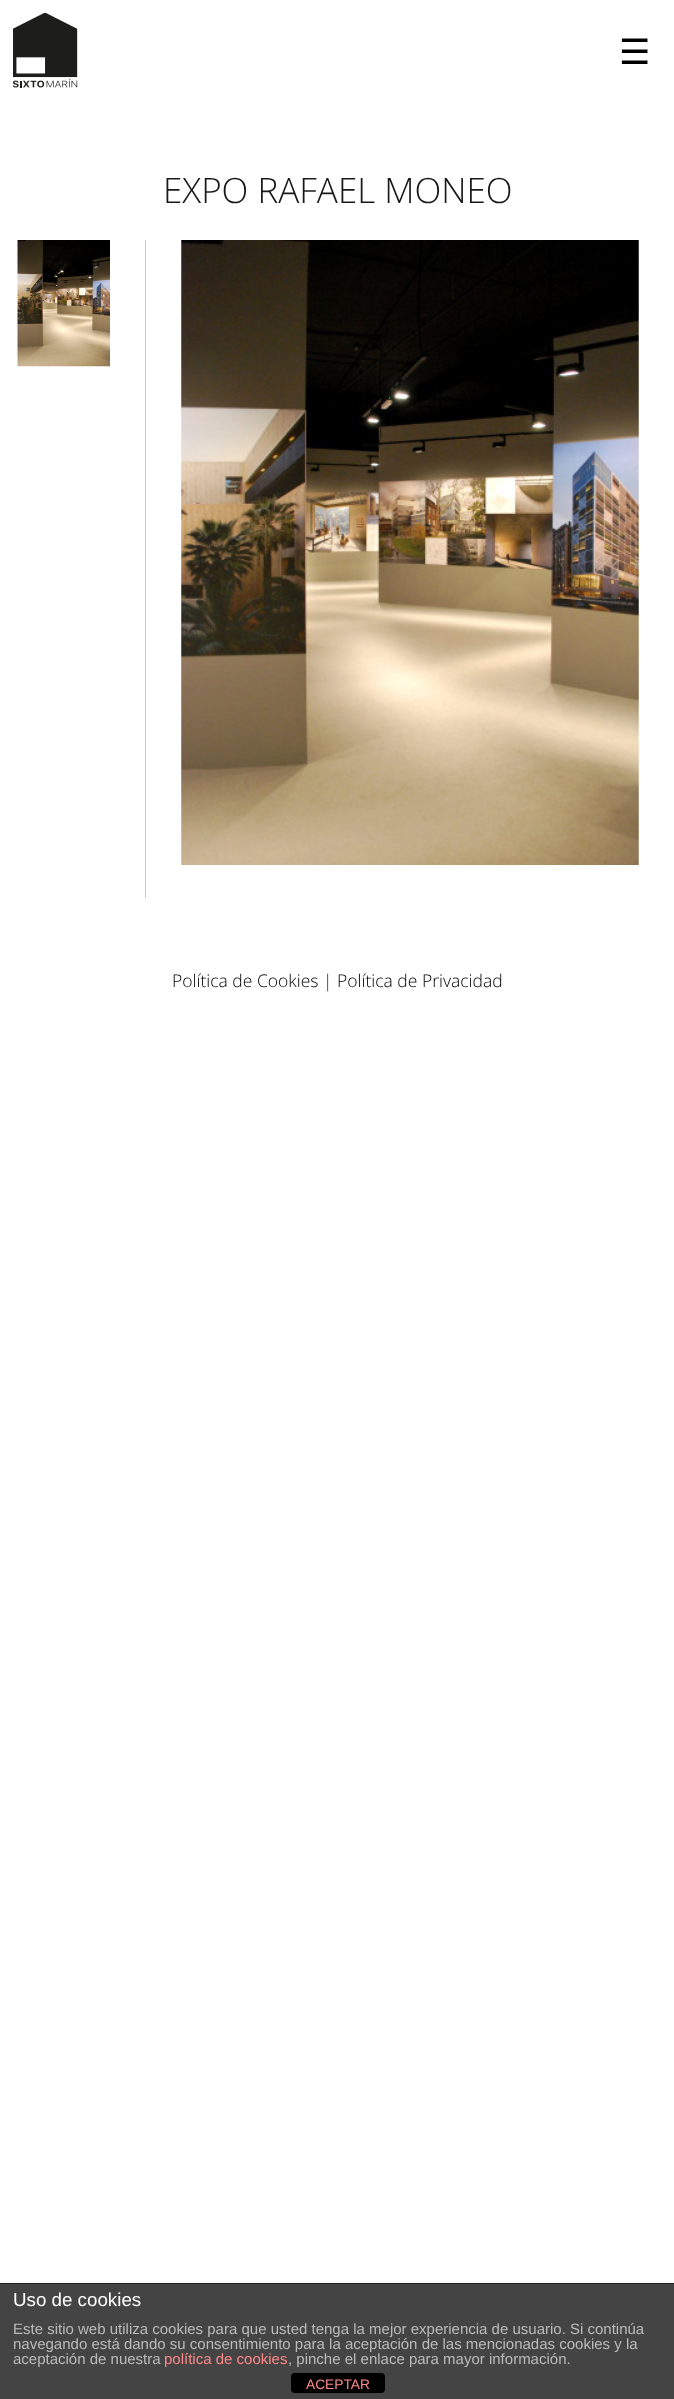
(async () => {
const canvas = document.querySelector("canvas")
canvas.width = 674
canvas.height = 2399
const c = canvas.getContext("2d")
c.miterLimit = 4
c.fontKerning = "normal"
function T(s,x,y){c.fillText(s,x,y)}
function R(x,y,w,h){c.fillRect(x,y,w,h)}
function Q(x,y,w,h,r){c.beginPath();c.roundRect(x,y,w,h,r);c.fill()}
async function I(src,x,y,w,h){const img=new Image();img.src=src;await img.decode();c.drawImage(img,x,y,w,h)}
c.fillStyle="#fff"
R(0,0,674,2399)
await I("1.png",13,13,65,75)
c.font="35px DejaVu Sans"
c.fillStyle="#000"
T("☰",619,64)
c.font="300 35px Open Sans"
c.fillStyle="#181818"
T("EXPO RAFAEL MONEO",163,203)
await I("2.png",17,240,93,127)
c.fillStyle="#ccc"
R(145,240,1,658)
await I("3.png",181,240,458,625)
c.font="300 17.5px Open Sans"
c.fillStyle="#000"
T("Política de Cookies",172,987)
c.fillStyle="#181818"
T("|",323,987)
c.fillStyle="#000"
T("Política de Privacidad",337,987)
c.fillStyle="#444"
R(0,2284,674,115)
c.fillStyle="#222"
R(0,2283,674,1)
c.font="18.75px Liberation Sans"
c.fillStyle="#fff"
T("Uso de cookies",13,2306)
c.font="15px Liberation Sans"
c.fillStyle="#bbb"
T("Este sitio web utiliza cookies para que usted tenga la mejor experiencia de usuario. Si continúa",13,2334)
T("navegando está dando su consentimiento para la aceptación de las mencionadas cookies y la",13,2349)
T("aceptación de nuestra",13,2364)
c.fillStyle="#f88"
T("política de cookies",164,2364)
c.fillStyle="#bbb"
T(", pinche el enlace para mayor información.",288,2364)
c.fillStyle="#000"
Q(291,2373,94,20,4)
c.font="13.75px Liberation Sans"
c.fillStyle="#f88"
T("ACEPTAR",306,2389)
})()
